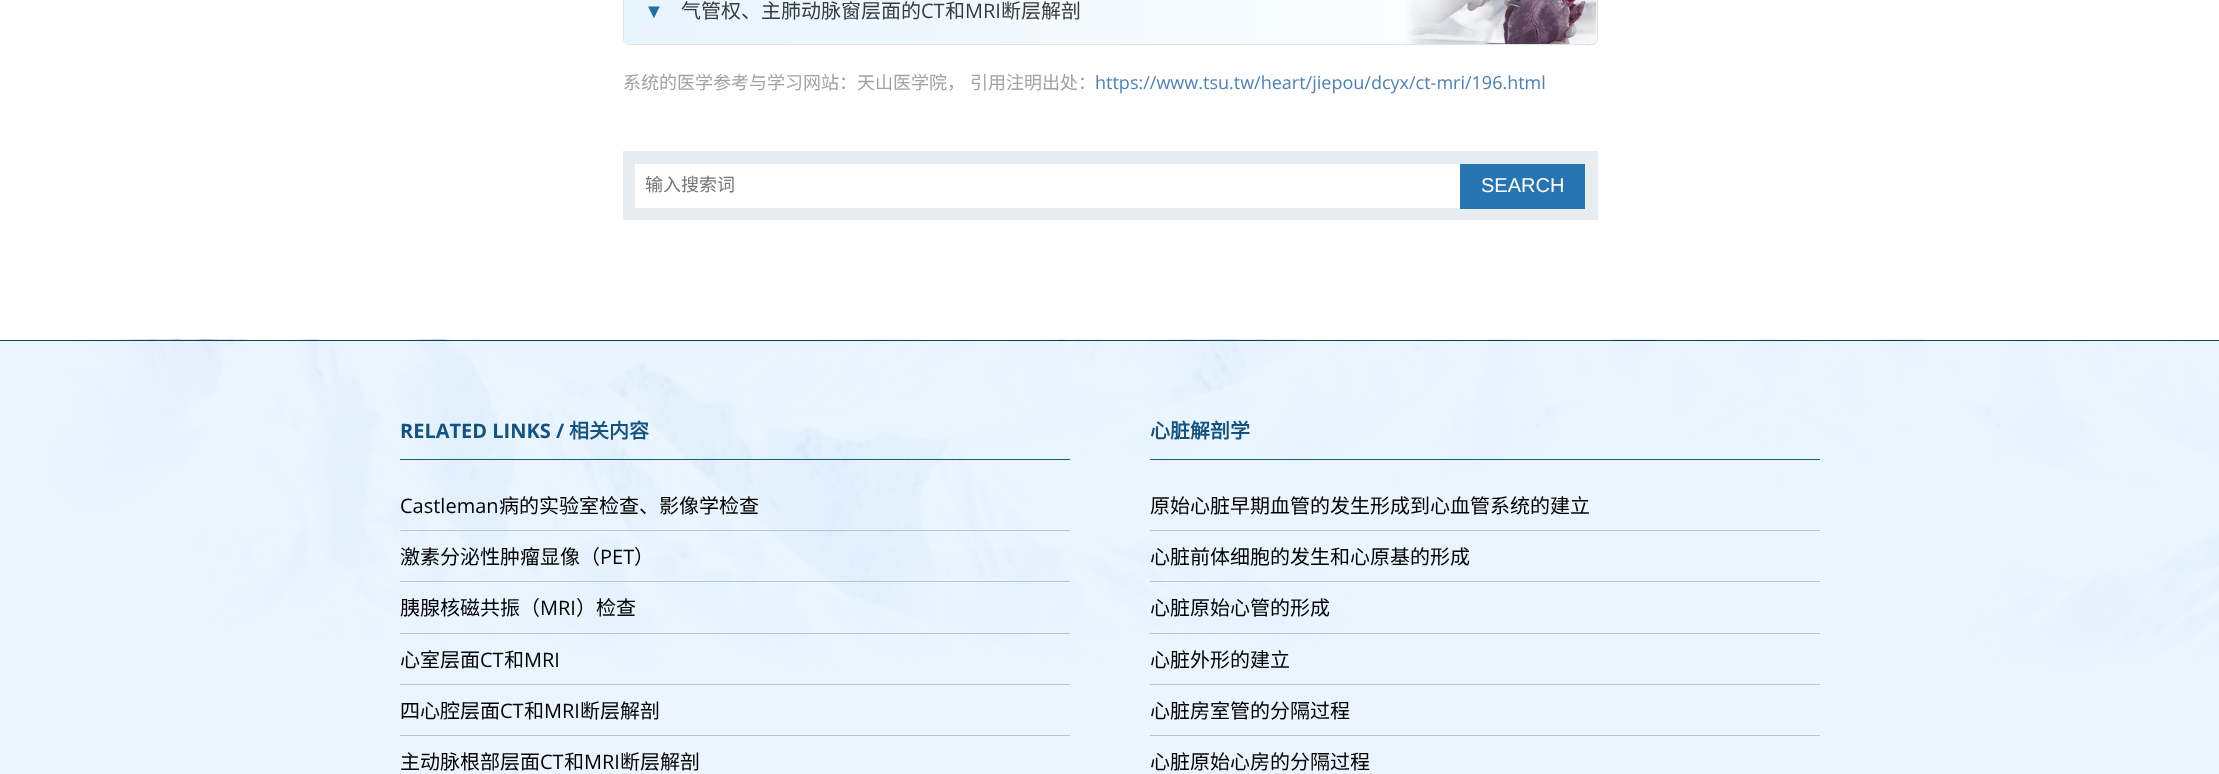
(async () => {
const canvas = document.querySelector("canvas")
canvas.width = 2219
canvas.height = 774
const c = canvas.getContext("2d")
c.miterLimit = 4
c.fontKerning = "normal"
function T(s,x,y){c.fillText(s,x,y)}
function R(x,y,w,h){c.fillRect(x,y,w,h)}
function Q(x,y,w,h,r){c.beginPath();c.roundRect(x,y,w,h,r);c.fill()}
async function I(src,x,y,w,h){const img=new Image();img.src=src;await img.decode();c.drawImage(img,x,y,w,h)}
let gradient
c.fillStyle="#fff"
R(0,0,2219,774)
c.fillStyle="#eaf5ff"
R(0,341,2219,433)
await I("1.png",1406,0,191,45)
c.beginPath()
c.roundRect(623.5,-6.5,974,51,5.5)
c.strokeStyle="#e1e1e1"
c.stroke()
gradient = c.createLinearGradient(624,-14,1596,-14)
gradient.addColorStop(0,"#dff1ffbf")
gradient.addColorStop(1,"#dff1ff00")
c.fillStyle = gradient
Q(624,-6,972,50,6)
c.font="20px Liberation Sans"
c.fillStyle="#226eab"
T("▼",644,18)
c.font="20px Noto Sans CJK SC"
c.fillStyle="#373d3f"
T("气管权、主肺动脉窗层面的",681,18)
c.font="20px Open Sans"
T("CT",921,18)
c.font="20px Noto Sans CJK SC"
T("和",945,18)
c.font="20px Open Sans"
T("MRI",965,18)
c.font="20px Noto Sans CJK SC"
T("断层解剖",1001,18)
c.wordSpacing="1px"
c.font="18px Noto Sans CJK SC"
c.fillStyle="#a2a2a2"
T("系统的医学参考与学习网站：天山医学院， 引用注明出处：",623,89)
c.wordSpacing="0px"
c.font="18px Open Sans"
c.fillStyle="#4c81b7"
T("https://www.tsu.tw/heart/jiepou/dcyx/ct-mri/196.html",1095,89)
c.fillStyle="#e7ecf0"
R(623,151,975,69)
c.fillStyle="#fff"
R(635,164,825,44)
c.font="18px Noto Sans CJK SC"
c.fillStyle="#757575"
T("输入搜索词",645,191)
c.fillStyle="#2774b2"
R(1460,164,125,45)
c.font="20px Liberation Sans"
c.fillStyle="#fff"
T("SEARCH",1481,192)
await I("2.png",13,339,2206,348)
c.fillStyle="#0d416a"
R(0,340,2219,1)
c.fillStyle="#1c5a8a"
R(400,459,670,1)
c.font="bold 20px Open Sans"
c.fillStyle="#145281"
T("RELATED LINKS /",400,438)
c.font="bold 20px Noto Sans CJK SC"
T("相关内容",569,438)
c.fillStyle="#b6c5d9"
R(400,530,670,1)
c.font="20px Open Sans"
c.fillStyle="#000"
T("Castleman",400,513)
c.font="20px Noto Sans CJK SC"
T("病的实验室检查、影像学检查",499,513)
c.fillStyle="#b6c5d9"
R(400,581,670,1)
c.fillStyle="#000"
T("激素分泌性肿瘤显像（",400,564)
c.font="20px Open Sans"
T("PET",600,564)
c.font="20px Noto Sans CJK SC"
T("）",634,564)
c.fillStyle="#b6c5d9"
R(400,633,670,1)
c.fillStyle="#000"
T("胰腺核磁共振（",400,615)
c.font="20px Open Sans"
T("MRI",540,615)
c.font="20px Noto Sans CJK SC"
T("）检查",576,615)
c.fillStyle="#b6c5d9"
R(400,684,670,1)
c.fillStyle="#000"
T("心室层面",400,667)
c.font="20px Open Sans"
T("CT",480,667)
c.font="20px Noto Sans CJK SC"
T("和",504,667)
c.font="20px Open Sans"
T("MRI",524,667)
c.fillStyle="#b6c5d9"
R(400,735,670,1)
c.font="20px Noto Sans CJK SC"
c.fillStyle="#000"
T("四心腔层面",400,718)
c.font="20px Open Sans"
T("CT",500,718)
c.font="20px Noto Sans CJK SC"
T("和",524,718)
c.font="20px Open Sans"
T("MRI",544,718)
c.font="20px Noto Sans CJK SC"
T("断层解剖",580,718)
T("主动脉根部层面",400,769)
c.font="20px Open Sans"
T("CT",540,769)
c.font="20px Noto Sans CJK SC"
T("和",564,769)
c.font="20px Open Sans"
T("MRI",584,769)
c.font="20px Noto Sans CJK SC"
T("断层解剖",620,769)
c.fillStyle="#1c5a8a"
R(1150,459,670,1)
c.font="bold 20px Noto Sans CJK SC"
c.fillStyle="#145281"
T("心脏解剖学",1150,438)
c.fillStyle="#b6c5d9"
R(1150,530,670,1)
c.font="20px Noto Sans CJK SC"
c.fillStyle="#000"
T("原始心脏早期血管的发生形成到心血管系统的建立",1150,513)
c.fillStyle="#b6c5d9"
R(1150,581,670,1)
c.fillStyle="#000"
T("心脏前体细胞的发生和心原基的形成",1150,564)
c.fillStyle="#b6c5d9"
R(1150,633,670,1)
c.fillStyle="#000"
T("心脏原始心管的形成",1150,615)
c.fillStyle="#b6c5d9"
R(1150,684,670,1)
c.fillStyle="#000"
T("心脏外形的建立",1150,667)
c.fillStyle="#b6c5d9"
R(1150,735,670,1)
c.fillStyle="#000"
T("心脏房室管的分隔过程",1150,718)
T("心脏原始心房的分隔过程",1150,769)
})()
